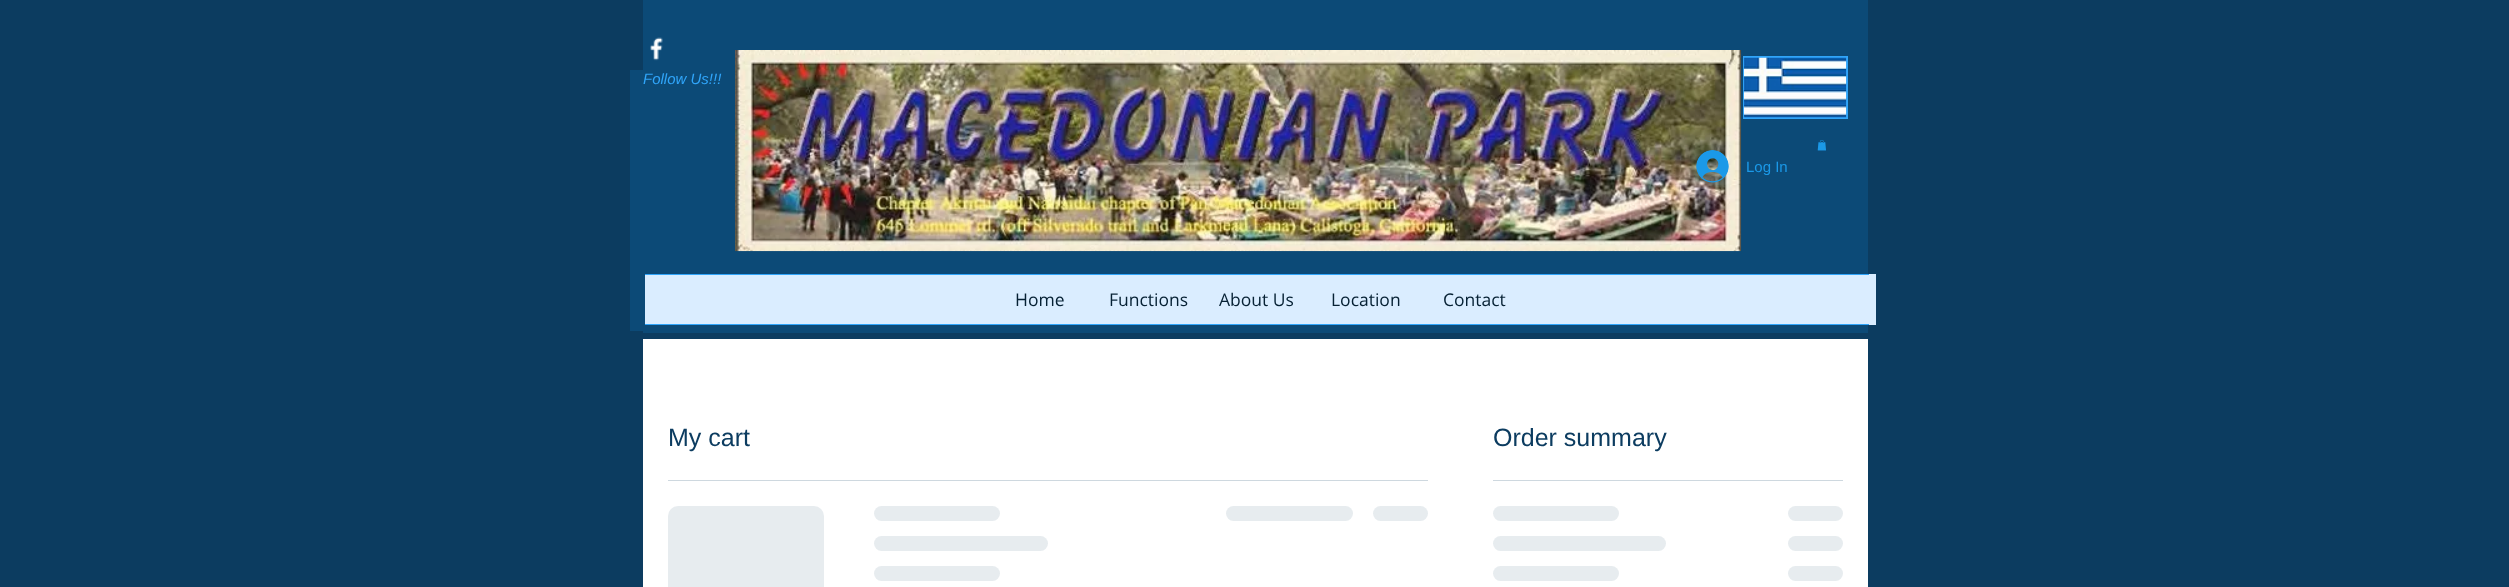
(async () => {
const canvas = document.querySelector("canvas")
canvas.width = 2509
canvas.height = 587
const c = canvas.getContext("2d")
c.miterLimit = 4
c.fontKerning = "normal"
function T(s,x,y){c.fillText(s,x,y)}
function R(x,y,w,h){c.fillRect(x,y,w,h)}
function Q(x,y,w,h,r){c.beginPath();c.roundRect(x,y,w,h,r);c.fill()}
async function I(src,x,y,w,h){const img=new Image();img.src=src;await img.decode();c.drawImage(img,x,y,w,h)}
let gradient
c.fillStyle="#0c3c60"
R(0,0,2509,587)
c.fillStyle="#0c4a77"
R(643,0,1225,333)
await I("1.png",650,37,13,24)
R(630,70,13,261)
c.font="italic 15px Liberation Sans"
c.fillStyle="#30a5fa"
T("Follow Us!!!",643,84)
R(1743,56,105,63)
await I("2.png",1743,57,104,61)
await I("3.png",1817,140,9,11)
await I("5.png",735,50,1007,202)
await I("4.png",1696,150,33,33)
c.font="15px Liberation Sans"
c.fillStyle="#1b99e8"
T("Log In",1746,172)
c.fillStyle="#daedff"
R(645,274,1231,51)
c.fillStyle="#30a5fa"
R(645,274,1224,1)
R(645,324,1224,1)
c.font="17.5px Open Sans"
c.fillStyle="#062134"
T("Home",1015,306)
T("Functions",1109,306)
T("About Us",1219,306)
T("Location",1331,306)
T("Contact",1443,306)
c.fillStyle="#fff"
R(643,339,1225,248)
c.fillStyle="#ced8df"
R(668,480,760,1)
c.font="25px Liberation Sans"
c.fillStyle="#0c3c60"
T("My cart",668,446)
gradient = c.createLinearGradient(668,584,1293,584)
gradient.addColorStop(.25,"#e7ecef")
gradient.addColorStop(.37,"#ced8df")
gradient.addColorStop(.63,"#e7ecef")
c.fillStyle = gradient
Q(668,506,156,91,10)
gradient = c.createLinearGradient(874,514,1379,514)
gradient.addColorStop(.25,"#e7ecef")
gradient.addColorStop(.37,"#ced8df")
gradient.addColorStop(.63,"#e7ecef")
c.fillStyle = gradient
Q(874,506,126,15,7.5)
gradient = c.createLinearGradient(874,544,1569,544)
gradient.addColorStop(.25,"#e7ecef")
gradient.addColorStop(.37,"#ced8df")
gradient.addColorStop(.63,"#e7ecef")
c.fillStyle = gradient
Q(874,536,174,15,7.5)
gradient = c.createLinearGradient(874,574,1379,574)
gradient.addColorStop(.25,"#e7ecef")
gradient.addColorStop(.37,"#ced8df")
gradient.addColorStop(.63,"#e7ecef")
c.fillStyle = gradient
Q(874,566,126,15,7.5)
gradient = c.createLinearGradient(1226,514,1731,514)
gradient.addColorStop(.25,"#e7ecef")
gradient.addColorStop(.37,"#ced8df")
gradient.addColorStop(.63,"#e7ecef")
c.fillStyle = gradient
Q(1226,506,127,15,7.5)
gradient = c.createLinearGradient(1373,514,1593,514)
gradient.addColorStop(.25,"#e7ecef")
gradient.addColorStop(.37,"#ced8df")
gradient.addColorStop(.63,"#e7ecef")
c.fillStyle = gradient
Q(1373,506,55,15,7.5)
c.fillStyle="#ced8df"
R(1493,480,350,1)
c.fillStyle="#0c3c60"
T("Order summary",1493,446)
gradient = c.createLinearGradient(1493,514,1998,514)
gradient.addColorStop(.25,"#e7ecef")
gradient.addColorStop(.37,"#ced8df")
gradient.addColorStop(.63,"#e7ecef")
c.fillStyle = gradient
Q(1493,506,126,15,7.5)
gradient = c.createLinearGradient(1788,514,2008,514)
gradient.addColorStop(.25,"#e7ecef")
gradient.addColorStop(.37,"#ced8df")
gradient.addColorStop(.63,"#e7ecef")
c.fillStyle = gradient
Q(1788,506,55,15,7.5)
gradient = c.createLinearGradient(1493,544,2188,544)
gradient.addColorStop(.25,"#e7ecef")
gradient.addColorStop(.37,"#ced8df")
gradient.addColorStop(.63,"#e7ecef")
c.fillStyle = gradient
Q(1493,536,173,15,7.5)
gradient = c.createLinearGradient(1788,544,2008,544)
gradient.addColorStop(.25,"#e7ecef")
gradient.addColorStop(.37,"#ced8df")
gradient.addColorStop(.63,"#e7ecef")
c.fillStyle = gradient
Q(1788,536,55,15,7.5)
gradient = c.createLinearGradient(1493,574,1998,574)
gradient.addColorStop(.25,"#e7ecef")
gradient.addColorStop(.37,"#ced8df")
gradient.addColorStop(.63,"#e7ecef")
c.fillStyle = gradient
Q(1493,566,126,15,7.5)
gradient = c.createLinearGradient(1788,574,2008,574)
gradient.addColorStop(.25,"#e7ecef")
gradient.addColorStop(.37,"#ced8df")
gradient.addColorStop(.63,"#e7ecef")
c.fillStyle = gradient
Q(1788,566,55,15,7.5)
})()
